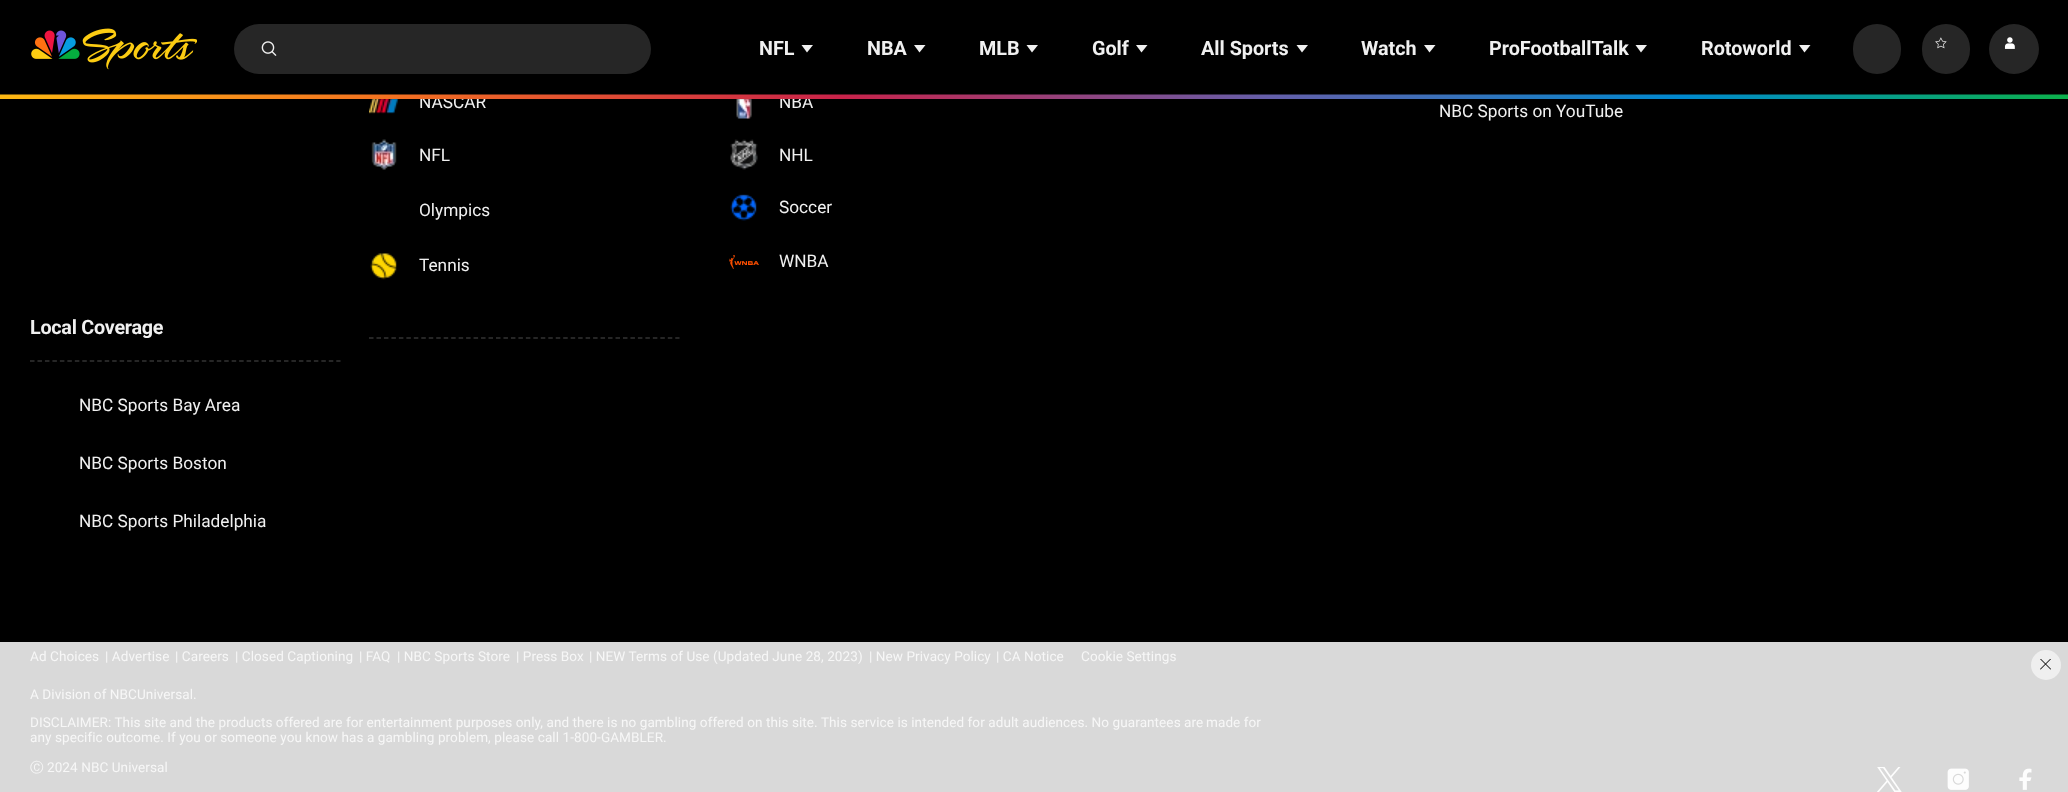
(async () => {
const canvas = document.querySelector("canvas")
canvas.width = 2068
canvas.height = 792
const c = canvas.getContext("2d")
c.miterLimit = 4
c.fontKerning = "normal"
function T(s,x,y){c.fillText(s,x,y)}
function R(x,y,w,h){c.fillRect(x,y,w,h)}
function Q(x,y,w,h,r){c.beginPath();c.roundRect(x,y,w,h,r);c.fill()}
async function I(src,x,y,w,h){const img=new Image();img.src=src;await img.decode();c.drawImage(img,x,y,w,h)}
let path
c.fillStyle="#000"
R(0,0,2068,792)
await I("6.png",369,99,30,15)
await I("7.png",736,99,16,20)
c.fillStyle="#0000001a"
R(372,99,438,1)
await I("1.png",31,28,166,42)
c.fillStyle="#262626"
Q(234,24,417,50,25)
await I("2.png",261,41,16,15)
c.font="bold 19.75px Roboto"
c.fillStyle="#f0f0f0"
T("NFL",759,55)
path = new Path2D("M807 52.5l-5.5-7.5h11.5z")
c.fill(path)
T("NBA",867,55)
path = new Path2D("M919.5 52.5l-5.5-7.5h11.5z")
c.fill(path)
T("MLB",979,55)
path = new Path2D("M1032 52.5l-5.5-7.5h11.5z")
c.fill(path)
T("Golf",1092,55)
path = new Path2D("M1141.5 52.5l-5.5-7.5h11.5z")
c.fill(path)
T("All Sports",1201,55)
path = new Path2D("M1302 52.5l-5.5-7.5h11.5z")
c.fill(path)
T("Watch",1361,55)
path = new Path2D("M1429.5 52.5l-5.5-7.5h11.5z")
c.fill(path)
T("ProFootballTalk",1489,55)
path = new Path2D("M1641 52.5l-5.5-7.5h11.5z")
c.fill(path)
T("Rotoworld",1701,55)
path = new Path2D("M1804.5 52.5l-5.5-7.5h11.5z")
c.fill(path)
c.fillStyle="#262626"
Q(1853,24,48,50,24)
Q(1922,24,48,50,24)
await I("3.png",1935,37,12,12)
c.beginPath()
c.arc(2014,49,25,0,7)
c.fill()
await I("4.png",2004,37,11,12)
c.font="17.25px Roboto"
c.fillStyle="#f0f0f0"
T("NASCAR",419,108)
T("NBA",779,108)
await I("5.png",0,94,2068,5)
c.fillStyle="#d9d9d9"
R(0,642,2068,150)
await I("8.png",371,139,26,31)
c.fillStyle="#f0f0f0"
T("NFL",419,161)
await I("9.png",730,139,28,31)
T("NHL",779,161)
T("Olympics",419,216)
await I("10.png",730,194,27,27)
T("Soccer",779,213)
await I("11.png",370,253,27,27)
T("Tennis",419,271)
await I("12.png",729,255,30,14)
T("WNBA",779,267)
T("NBC Sports on YouTube",1439,117)
path = new Path2D("M30 361h310.5")
c.strokeStyle="#333"
c.lineWidth=1.5
c.setLineDash([4.5,2.97])
c.stroke(path)
c.letterSpacing="-0.25px"
c.font="bold 19.75px Roboto"
T("Local Coverage",30,334)
c.letterSpacing="0px"
c.font="17.25px Roboto"
T("NBC Sports Bay Area",79,411)
T("NBC Sports Boston",79,469)
T("NBC Sports Philadelphia",79,527)
path = new Path2D("M369 338h310.5")
c.stroke(path)
c.letterSpacing="0.07px"
c.font="13.55px Roboto"
c.fillStyle="#f7f7f7"
T("Ad Choices",30,661)
T("| Advertise",105,661)
T("| Careers",175,661)
T("| Closed Captioning",235,661)
T("| FAQ",359,661)
T("| NBC Sports Store",397,661)
T("| Press Box",516,661)
T("| NEW Terms of Use (Updated June 28, 2023)",589,661)
T("| New Privacy Policy",869,661)
T("| CA Notice",996,661)
T("Cookie Settings",1081,661)
T("A Division of NBCUniversal.",30,699)
T("DISCLAIMER: This site and the products offered are for entertainment purposes only, and there is no gambling offered on this site. This service is intended for adult audiences. No guarantees are",30,727)
T("made for",1206,727)
T("any specific outcome. If you or someone you know has a gambling problem, please call 1-800-GAMBLER.",30,742)
c.font="500 13.55px WenQuanYi Zen Hei"
T("Ⓒ",30,772)
c.font="13.55px Roboto"
T("2024 NBC Universal",47,772)
await I("13.png",1877,767,25,25)
await I("14.png",1947,768,22,22)
await I("15.png",2019,768,13,22)
c.fillStyle="#efefef"
c.beginPath()
c.arc(2046,665,15,0,7)
c.fill()
await I("16.png",2040,659,11,11)
})()
